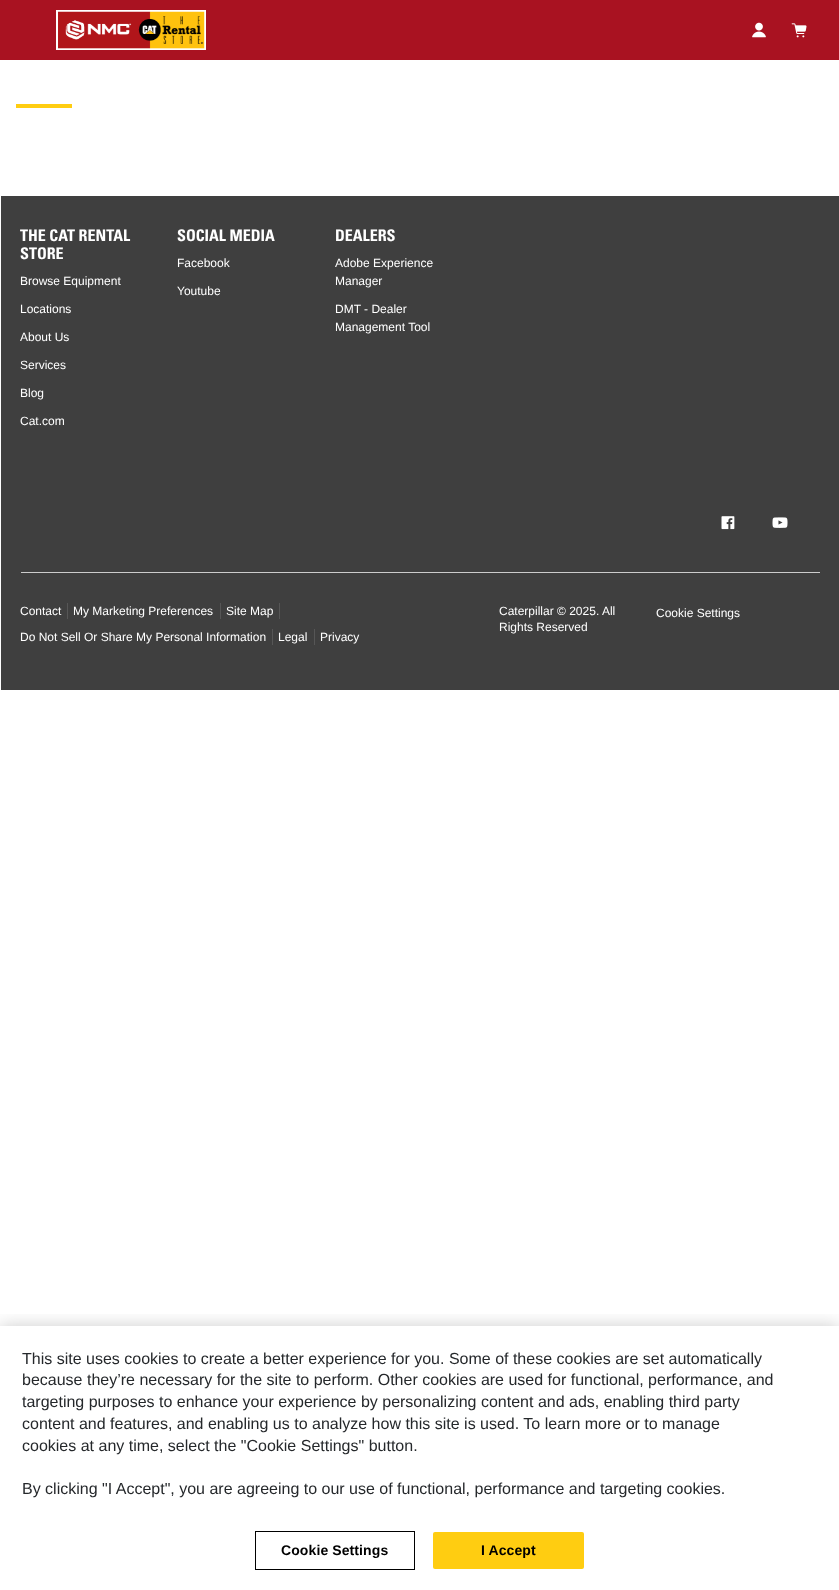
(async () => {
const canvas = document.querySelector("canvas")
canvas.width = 839
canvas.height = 1590
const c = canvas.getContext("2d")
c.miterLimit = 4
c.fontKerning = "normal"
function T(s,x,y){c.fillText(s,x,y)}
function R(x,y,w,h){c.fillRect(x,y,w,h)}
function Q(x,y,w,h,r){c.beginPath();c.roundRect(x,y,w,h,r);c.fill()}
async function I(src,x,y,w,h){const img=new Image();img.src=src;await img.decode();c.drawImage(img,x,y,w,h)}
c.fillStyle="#fff"
R(0,0,839,1590)
c.fillStyle="#a91221"
R(0,0,839,60)
await I("1.png",56,10,150,40)
await I("2.png",752,22,14,16)
await I("3.png",791,23,16,15)
c.fillStyle="#ffcd11"
R(16,104,56,4)
c.fillStyle="#3f3f3f"
R(1,196,838,494)
c.font="bold 16px 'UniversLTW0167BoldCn'"
c.fillStyle="#fff"
T("THE CAT RENTAL",20,241)
T("STORE",20,259)
c.font="12px Liberation Sans"
T("Browse Equipment",20,285)
T("Locations",20,313)
T("About Us",20,341)
T("Services",20,369)
T("Blog",20,397)
T("Cat.com",20,425)
c.font="bold 16px 'UniversLTW0167BoldCn'"
T("SOCIAL MEDIA",177,241)
c.font="12px Liberation Sans"
T("Facebook",177,267)
T("Youtube",177,295)
c.font="bold 16px 'UniversLTW0167BoldCn'"
T("DEALERS",335,241)
c.font="12px Liberation Sans"
T("Adobe Experience",335,267)
T("Manager",335,285)
T("DMT - Dealer",335,313)
T("Management Tool",335,331)
await I("4.png",721,516,14,14)
await I("5.png",772,517,16,11)
c.fillStyle="#ccc"
R(21,572,799,1)
c.fillStyle="#565656"
R(67,603,1,16)
c.fillStyle="#fff"
T("Contact",20,615)
c.fillStyle="#565656"
R(220,603,1,16)
c.fillStyle="#fff"
T("My Marketing Preferences",73,615)
c.fillStyle="#565656"
R(279,603,1,16)
c.fillStyle="#fff"
T("Site Map",226,615)
c.fillStyle="#565656"
R(272,629,1,16)
c.fillStyle="#fff"
T("Do Not Sell Or Share My Personal Information",20,641)
c.fillStyle="#565656"
R(314,629,1,16)
c.fillStyle="#fff"
T("Legal",278,641)
T("Privacy",320,641)
T("Caterpillar © 2025. All",499,615)
T("Rights Reserved",499,631)
T("Cookie Settings",656,617)
c.save()
c.beginPath()
c.rect(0,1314,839,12)
c.clip()
c.fillStyle="#00000033"
c.filter="blur(9px)"
c.beginPath()
c.rect(0,1326,839,264)
c.fill()
c.filter="none"
c.restore()
c.font="16px Liberation Sans"
c.fillStyle="#25282b"
T("This site uses cookies to create a better experience for you. Some of these cookies are set automatically",22,1364)
T("because they’re necessary for the site to perform. Other cookies are used for functional, performance, and",22,1385)
T("targeting purposes to enhance your experience by personalizing content and ads, enabling third party",22,1407)
T("content and features, and enabling us to analyze how this site is used. To learn more or to manage",22,1429)
T("cookies at any time, select the \"Cookie Settings\" button.",22,1451)
T("By clicking \"I Accept\", you are agreeing to our use of functional, performance and targeting cookies.",22,1494)
c.strokeStyle="#000"
c.strokeRect(255.5,1531.5,159,38)
c.letterSpacing="0.1px"
c.font="bold 14px Liberation Sans"
c.fillStyle="#000"
T("Cookie Settings",281,1555)
c.fillStyle="#ffcd11"
Q(433,1532,151,37,2)
c.fillStyle="#000"
T("I Accept",481,1555)
})()
